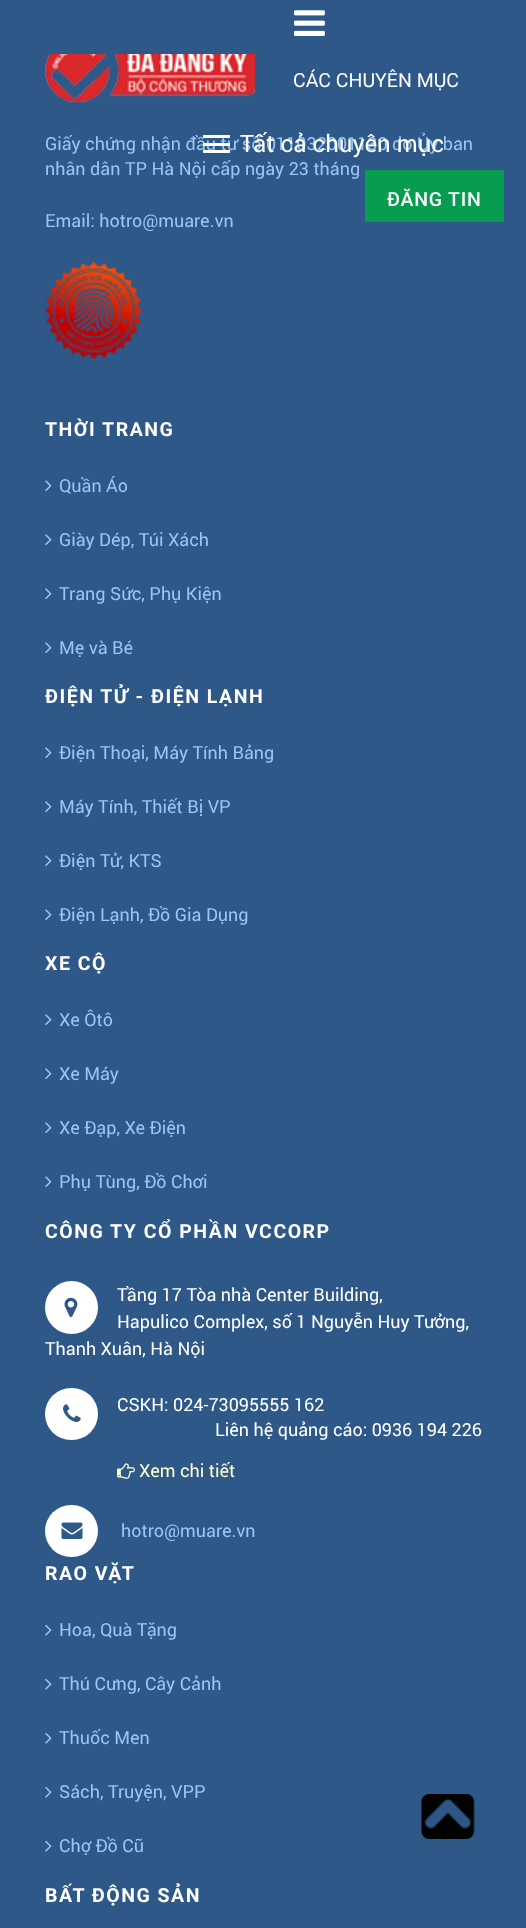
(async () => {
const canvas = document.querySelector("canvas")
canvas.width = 526
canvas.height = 1928
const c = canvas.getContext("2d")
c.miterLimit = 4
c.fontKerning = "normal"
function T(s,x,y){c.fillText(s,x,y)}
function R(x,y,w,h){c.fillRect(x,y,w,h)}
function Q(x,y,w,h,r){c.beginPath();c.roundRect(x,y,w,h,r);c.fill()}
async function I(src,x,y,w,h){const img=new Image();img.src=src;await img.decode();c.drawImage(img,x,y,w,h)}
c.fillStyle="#2e5888"
R(0,0,526,1928)
await I("1.png",294,10,31,26)
c.font="19.5px 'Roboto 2'"
c.fillStyle="#fff"
T("CÁC CHUYÊN MỤC",293,87)
c.font="18px Roboto"
c.fillStyle="#9ac6f5"
T("Giấy chứng nhận đầu tư số 011032001130 do Ủy ban",45,150)
c.fillStyle="#fff"
R(203,135,27,3)
R(203,143,27,3)
R(203,150,27,3)
c.font="24px Roboto"
T("Tất cả chuyên mục",240,152)
c.fillStyle="#079c50"
R(365,170,139,52)
c.letterSpacing="0.75px"
c.font="500 19.5px Roboto"
c.fillStyle="#fff"
T("ĐĂNG TIN",387,206)
await I("2.png",45,54,210,49)
c.letterSpacing="0px"
c.font="18px Roboto"
c.fillStyle="#9ac6f5"
T("nhân dân TP Hà Nội cấp ngày 23 tháng",45,175)
T("Email: hotro@muare.vn",45,227)
await I("3.png",45,262,98,97)
c.letterSpacing="1.5px"
c.font="bold 19.5px Roboto"
c.fillStyle="#fff"
T("THỜI TRANG",45,436)
await I("4.png",45,480,7,11)
c.letterSpacing="0px"
c.font="18px Roboto"
c.fillStyle="#9ac6f5"
T("Quần Áo",59,492)
await I("4.png",45,534,7,11)
T("Giày Dép, Túi Xách",59,546)
await I("4.png",45,588,7,11)
T("Trang Sức, Phụ Kiện",59,600)
await I("4.png",45,642,7,11)
T("Mẹ và Bé",59,654)
c.letterSpacing="1.5px"
c.font="bold 19.5px Roboto"
c.fillStyle="#fff"
T("ĐIỆN TỬ - ĐIỆN LẠNH",45,703)
await I("4.png",45,747,7,11)
c.letterSpacing="0px"
c.font="18px Roboto"
c.fillStyle="#9ac6f5"
T("Điện Thoại, Máy Tính Bảng",59,759)
await I("4.png",45,801,7,11)
T("Máy Tính, Thiết Bị VP",59,813)
await I("4.png",45,855,7,11)
T("Điện Tử, KTS",59,867)
await I("4.png",45,909,7,11)
T("Điện Lạnh, Đồ Gia Dụng",59,921)
c.letterSpacing="1.5px"
c.font="bold 19.5px Roboto"
c.fillStyle="#fff"
T("XE CỘ",45,970)
await I("4.png",45,1014,7,11)
c.letterSpacing="0px"
c.font="18px Roboto"
c.fillStyle="#9ac6f5"
T("Xe Ôtô",59,1026)
await I("4.png",45,1068,7,11)
T("Xe Máy",59,1080)
await I("4.png",45,1122,7,11)
T("Xe Đạp, Xe Điện",59,1134)
await I("4.png",45,1176,7,11)
T("Phụ Tùng, Đồ Chơi",59,1188)
c.letterSpacing="1.5px"
c.font="bold 19.5px Roboto"
c.fillStyle="#fff"
T("CÔNG TY CỔ PHẦN VCCORP",45,1238)
c.beginPath()
c.arc(71.5,1307.5,26.5,0,7)
c.fill()
await I("5.png",64,1297,14,21)
c.letterSpacing="0px"
c.font="18px Roboto"
T("Tầng 17 Tòa nhà Center Building,",117,1301)
T("Hapulico Complex, số 1 Nguyễn Huy Tưởng,",117,1328)
T("Thanh Xuân, Hà Nội",45,1355)
Q(45,1388,53,52,26)
await I("6.png",63,1404,18,18)
T("CSKH: 024-73095555 162",117,1411)
T("Liên hệ quảng cáo: 0936 194 226",215,1436)
await I("7.png",117,1463,18,16)
c.fillStyle="#ffc"
T("Xem chi tiết",139,1477)
c.fillStyle="#fff"
Q(45,1505,53,52,26)
await I("8.png",61,1522,22,17)
c.fillStyle="#9ac6f5"
T("hotro@muare.vn",121,1537)
c.letterSpacing="1.5px"
c.font="bold 19.5px Roboto"
c.fillStyle="#fff"
T("RAO VẶT",45,1580)
await I("9.png",45,1624,7,12)
c.letterSpacing="0px"
c.font="18px Roboto"
c.fillStyle="#9ac6f5"
T("Hoa, Quà Tặng",59,1636)
await I("9.png",45,1678,7,12)
T("Thú Cưng, Cây Cảnh",59,1690)
await I("9.png",45,1732,7,12)
T("Thuốc Men",59,1744)
await I("9.png",45,1786,7,12)
T("Sách, Truyện, VPP",59,1798)
await I("9.png",45,1840,7,12)
T("Chợ Đồ Cũ",59,1852)
c.letterSpacing="1.5px"
c.font="bold 19.5px Roboto"
c.fillStyle="#fff"
T("BẤT ĐỘNG SẢN",45,1902)
await I("10.png",421,1794,54,45)
})()
